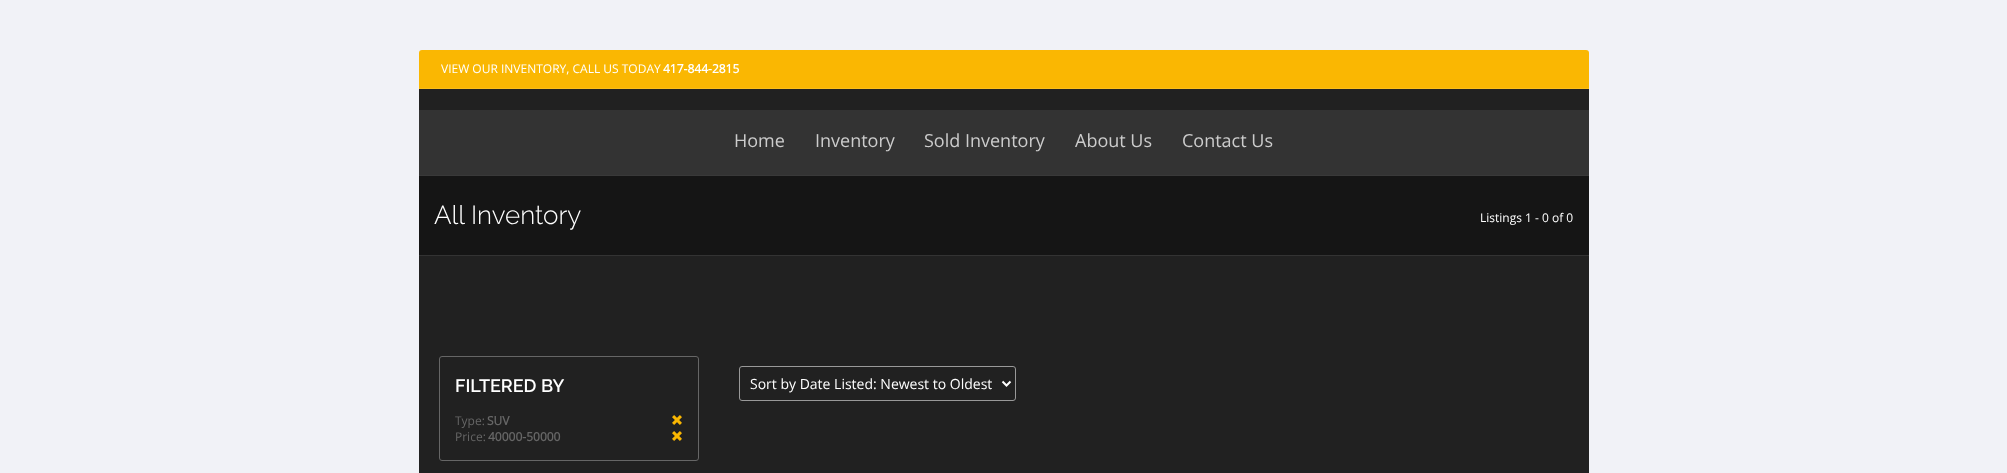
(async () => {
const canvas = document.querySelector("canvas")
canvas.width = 2007
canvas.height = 473
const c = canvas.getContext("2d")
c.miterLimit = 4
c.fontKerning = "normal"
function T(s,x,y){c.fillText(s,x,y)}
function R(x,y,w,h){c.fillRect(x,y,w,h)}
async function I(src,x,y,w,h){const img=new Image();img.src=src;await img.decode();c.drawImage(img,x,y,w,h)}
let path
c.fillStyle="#f1f2f7"
R(0,0,2007,473)
c.fillStyle="#fab702"
c.beginPath()
c.roundRect(419,50,1170,39,[3,3,0,0])
c.fill()
c.fillStyle="#fbbe1b"
R(419,88,1170,1)
c.font="12px Open Sans"
c.fillStyle="#fff"
T("VIEW OUR INVENTORY, CALL US TODAY",441,73)
c.font="bold 12px Open Sans"
T("417-844-2815",663,73)
c.fillStyle="#212121"
R(419,89,1170,21)
c.fillStyle="#333"
R(419,110,1170,65)
c.fillStyle="#393939"
R(419,175,1170,1)
c.font="18px Open Sans"
c.fillStyle="#ccc"
T("Home",734,147)
T("Inventory",815,147)
T("Sold Inventory",924,147)
T("About Us",1075,147)
T("Contact Us",1182,147)
c.fillStyle="#151515"
R(419,176,1170,79)
c.fillStyle="#333"
R(419,255,1170,1)
c.font="300 26px Raleway"
c.fillStyle="#fff"
T("All Inventory",434,224)
c.font="12px Open Sans"
T("Listings 1 - 0 of 0",1480,222)
c.fillStyle="#212121"
R(419,256,1170,217)
c.beginPath()
c.roundRect(439.5,356.5,259,104,2.5)
c.strokeStyle="#666"
c.stroke()
c.font="600 18px Raleway"
c.fillStyle="#fff"
T("FILTERED BY",455,392)
c.font="12px Open Sans"
c.fillStyle="#666"
T("Type:",455,425)
c.font="bold 12px Open Sans"
T("SUV",487,425)
await I("1.png",672,415,10,10)
c.font="12px Open Sans"
T("Price:",455,441)
c.font="bold 12px Open Sans"
T("40000-50000",488,441)
await I("1.png",672,431,10,10)
c.beginPath()
c.roundRect(739.5,366.5,276,34,2.5)
c.strokeStyle="#999"
c.stroke()
path = new Path2D("M1002.5 381.5l4 4l4-4")
c.strokeStyle="#fff"
c.lineWidth=2
c.stroke(path)
c.font="14px Open Sans"
c.fillStyle="#fff"
T("Sort by Date Listed: Newest to Oldest",750,389)
})()
